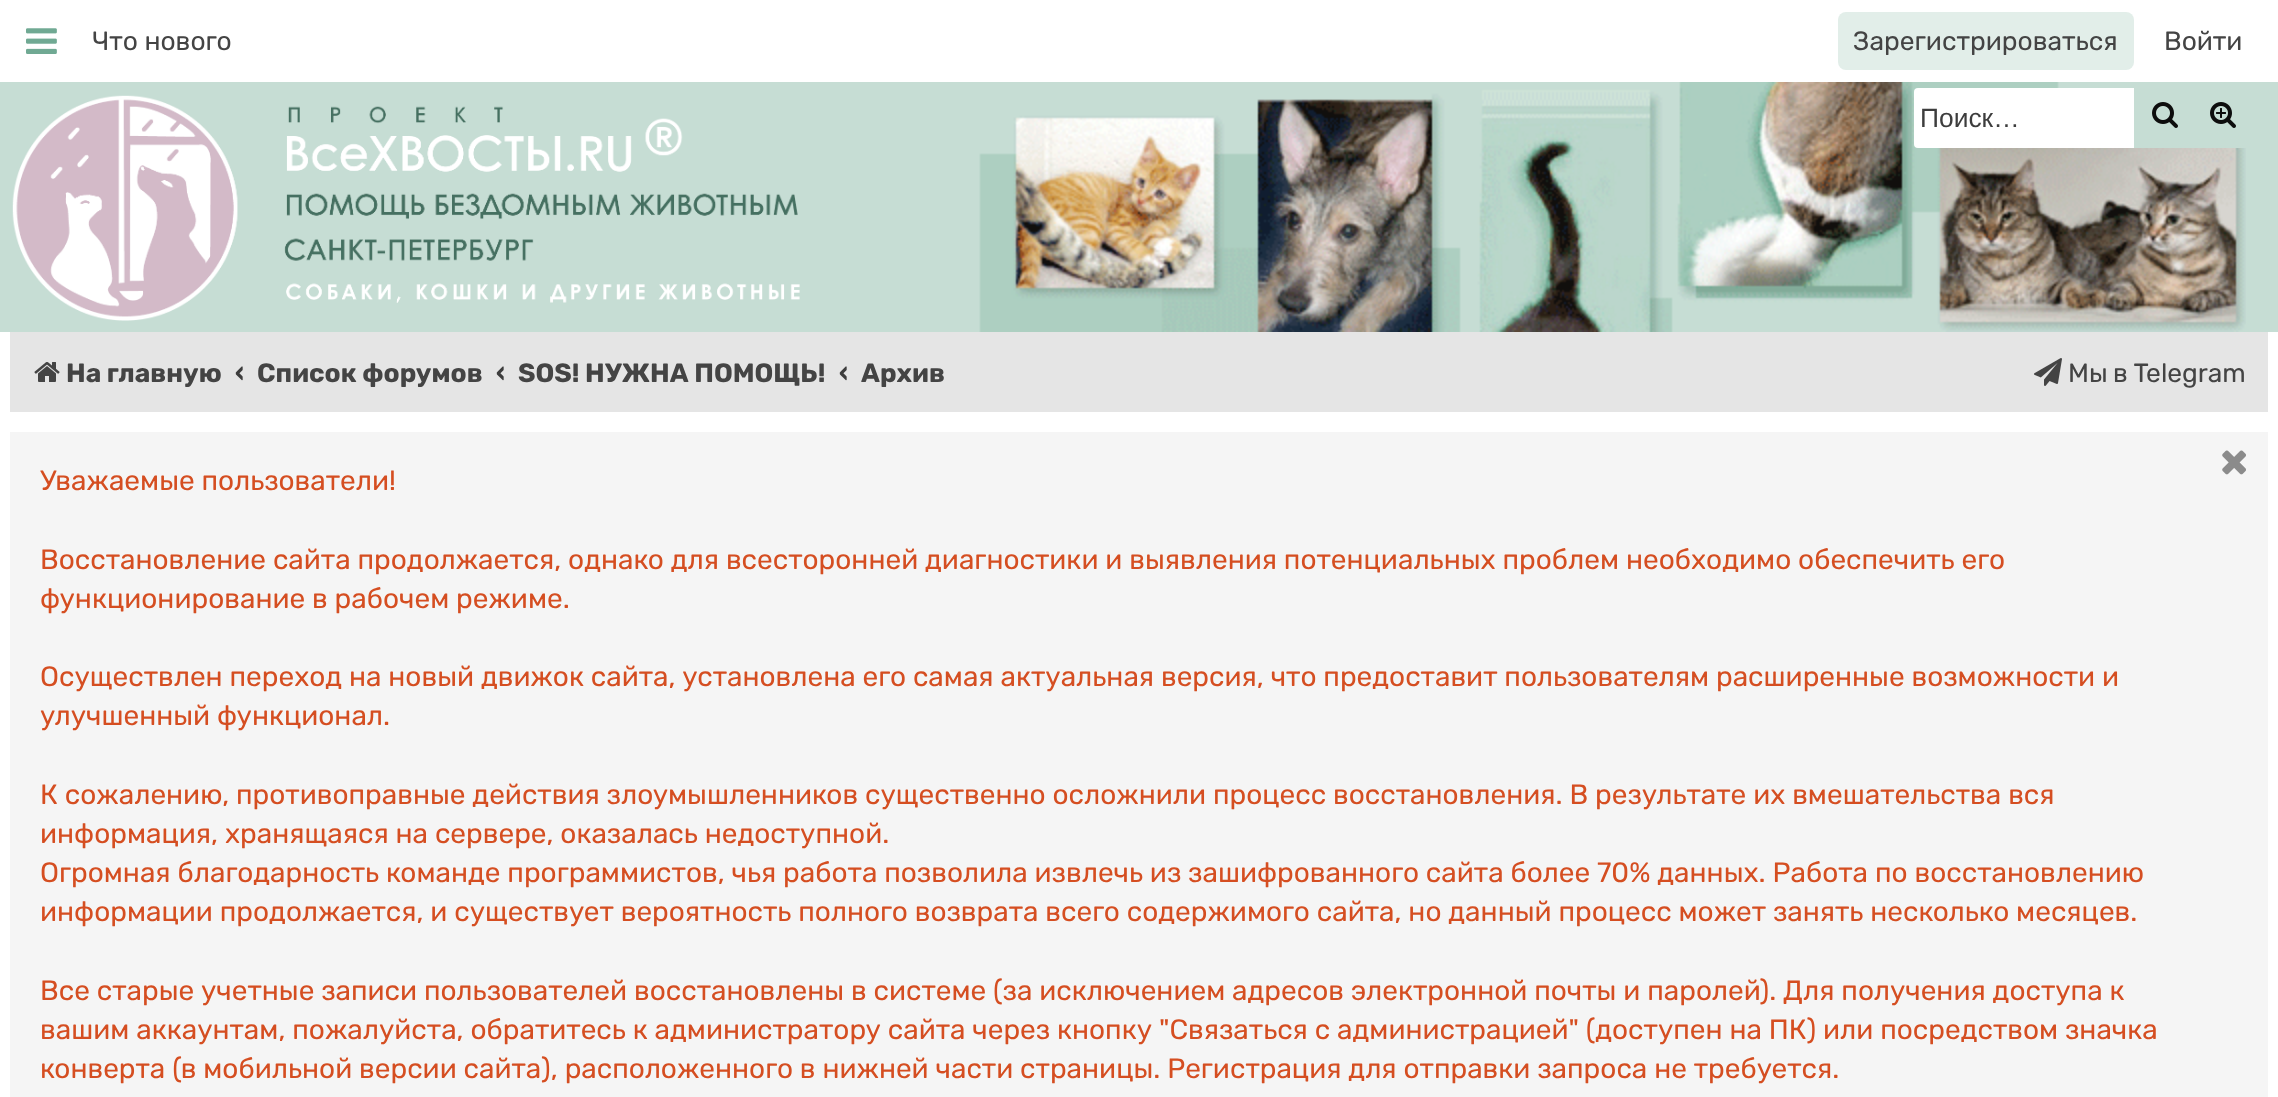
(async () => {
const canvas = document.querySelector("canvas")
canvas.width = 2278
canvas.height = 1097
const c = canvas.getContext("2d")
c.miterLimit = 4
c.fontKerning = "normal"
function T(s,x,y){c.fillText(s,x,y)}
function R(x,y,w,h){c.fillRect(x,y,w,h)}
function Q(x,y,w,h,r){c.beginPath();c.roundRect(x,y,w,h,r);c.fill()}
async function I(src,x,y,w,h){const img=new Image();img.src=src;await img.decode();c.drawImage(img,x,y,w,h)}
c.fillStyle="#fff"
R(0,0,2278,1097)
await I("1.png",26,28,31,26)
c.font="26.4px Rubik"
c.fillStyle="#444"
T("Что нового",92,50)
c.fillStyle="#e2eee9"
Q(1838,12,296,58,8)
c.fillStyle="#444"
T("Зарегистрироваться",1853,50)
T("Войти",2164,50)
c.fillStyle="#c6ddd4"
R(0,82,2278,250)
await I("2.png",979,82,1267,250)
await I("3.png",12,95,788,226)
c.fillStyle="#fff"
c.beginPath()
c.roundRect(1914,88,220,60,[4,0,0,4])
c.fill()
c.font="26.4px Liberation Sans"
c.fillStyle="#3d3d3d"
T("Поиск…",1920,127)
c.fillStyle="#c6ddd4"
R(2134,119,60,29)
await I("4.png",2152,102,26,26)
c.beginPath()
c.roundRect(2194,88,56,60,[0,4,4,0])
c.fill()
await I("5.png",2210,102,26,26)
c.fillStyle="#e5e5e5"
R(10,332,2258,80)
await I("6.png",34,362,26,20)
c.font="bold 26.4px Rubik"
c.fillStyle="#444"
T("На главную",66,382)
c.fillStyle="#3d3d3d"
T("‹",235,382)
c.fillStyle="#444"
T("Список форумов",257,382)
c.fillStyle="#3d3d3d"
T("‹",496,382)
c.fillStyle="#444"
T("SOS! НУЖНА ПОМОЩЬ!",518,382)
c.fillStyle="#3d3d3d"
T("‹",839,382)
c.fillStyle="#444"
T("Архив",861,382)
await I("7.png",2034,358,28,28)
c.wordSpacing="-1px"
c.font="26.4px Rubik"
T("Мы в Telegram",2068,382)
c.fillStyle="#f5f5f5"
R(10,432,2258,665)
await I("8.png",2222,450,24,25)
c.wordSpacing="0px"
c.font="28px Rubik"
c.fillStyle="#d54e21"
T("Уважаемые пользователи!",40,490)
T("Восстановление сайта продолжается, однако для всесторонней диагностики и выявления потенциальных проблем необходимо обеспечить его",40,569)
T("функционирование в рабочем режиме.",40,608)
T("Осуществлен переход на новый движок сайта, установлена его самая актуальная версия, что предоставит пользователям расширенные возможности и",40,686)
T("улучшенный функционал.",40,725)
T("К сожалению, противоправные действия злоумышленников существенно осложнили процесс восстановления. В результате их вмешательства вся",40,804)
T("информация, хранящаяся на сервере, оказалась недоступной.",40,843)
T("Огромная благодарность команде программистов, чья работа позволила извлечь из зашифрованного сайта более 70% данных. Работа по восстановлению",40,882)
T("информации продолжается, и существует вероятность полного возврата всего содержимого сайта, но данный процесс может занять несколько месяцев.",40,921)
T("Все старые учетные записи пользователей восстановлены в системе (за исключением адресов электронной почты и паролей). Для получения доступа к",40,1000)
T("вашим аккаунтам, пожалуйста, обратитесь к администратору сайта через кнопку \"Связаться с администрацией\" (доступен на ПК) или посредством значка",40,1039)
T("конверта (в мобильной версии сайта), расположенного в нижней части страницы. Регистрация для отправки запроса не требуется.",40,1078)
})()
